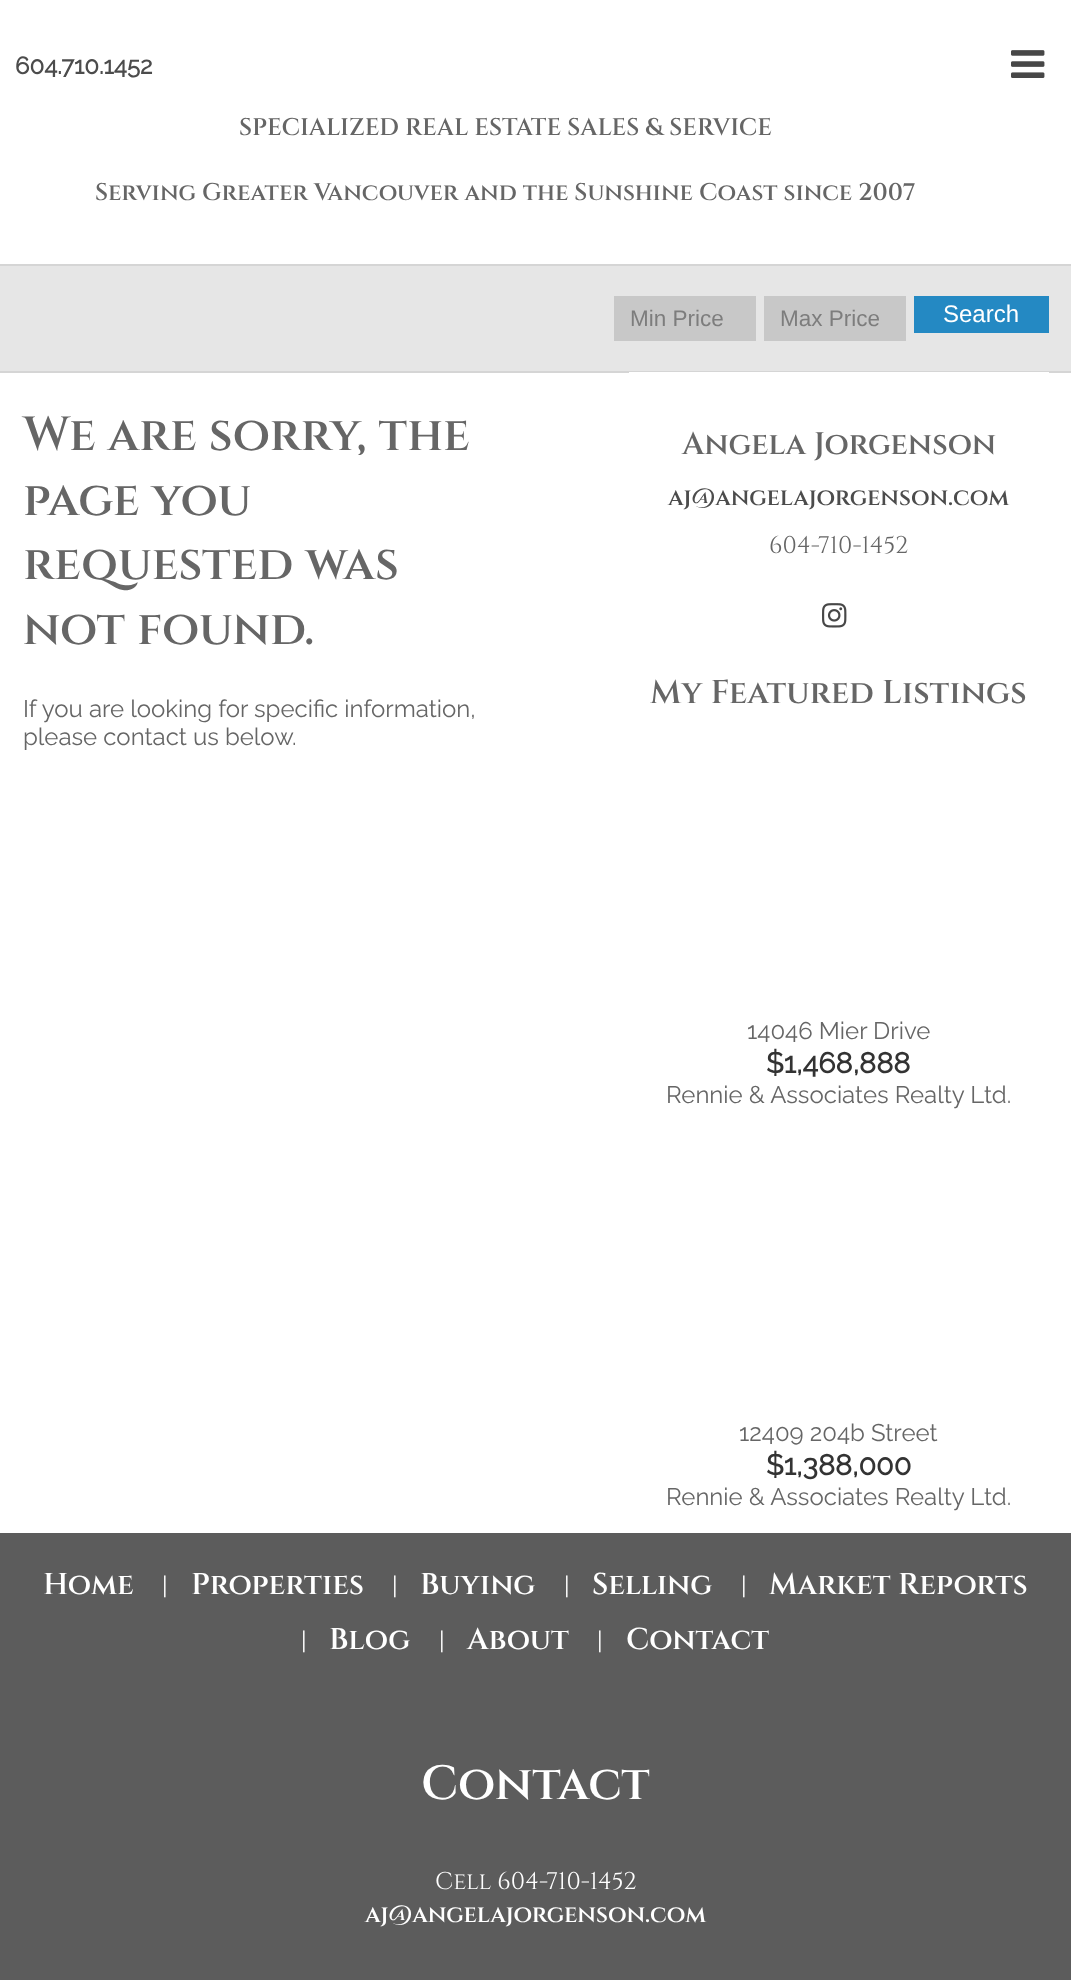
(async () => {
const canvas = document.querySelector("canvas")
canvas.width = 1071
canvas.height = 1980
const c = canvas.getContext("2d")
c.miterLimit = 4
c.fontKerning = "normal"
function T(s,x,y){c.fillText(s,x,y)}
function R(x,y,w,h){c.fillRect(x,y,w,h)}
async function I(src,x,y,w,h){const img=new Image();img.src=src;await img.decode();c.drawImage(img,x,y,w,h)}
c.fillStyle="#fff"
R(0,0,1071,1980)
c.font="bold 24px Raleway"
c.fillStyle="#4c4c4c"
T("604.710.1452",15,74)
c.font="600 24px Cinzel"
c.fillStyle="#666"
T("SPECIALIZED REAL ESTATE SALES & SERVICE",239,135)
T("Serving Greater Vancouver and the Sunshine Coast since 2007",95,200)
await I("1.png",1011,50,34,28)
c.fillStyle="#e6e6e6"
R(0,266,1071,105)
c.fillStyle="#d5d5d5"
R(0,264,1071,2)
R(0,371,1071,2)
c.fillStyle="#c8c8c8"
R(614,296,142,45)
c.font="22.5px Liberation Sans"
c.fillStyle="#7d7d7d"
T("Min Price",630,326)
c.fillStyle="#c8c8c8"
R(764,296,142,45)
c.fillStyle="#7d7d7d"
T("Max Price",780,326)
c.fillStyle="#2489c3"
R(914,296,135,37)
c.font="24px Liberation Sans"
c.fillStyle="#fff"
T("Search",943,322)
c.font="600 48px Cinzel"
c.fillStyle="#666"
T("We are sorry, the",23,450)
T("page you",23,515)
T("requested was",23,579)
T("not found.",23,644)
c.font="100 24px Raleway"
T("If you are looking for specific information,",23,717)
T("please contact us below.",23,745)
c.fillStyle="#fff"
R(629,372,420,1)
c.font="600 31.25px Cinzel"
c.fillStyle="#666"
T("Angela Jorgenson",682,454)
c.font="600 24px Cinzel"
c.fillStyle="#4c4c4c"
T("aj@angelajorgenson.com",668,505)
c.font="24px Cinzel"
c.fillStyle="#666"
T("604-710-1452",769,553)
await I("2.png",822,603,25,25)
c.font="600 33px Cinzel"
T("My Featured Listings",650,703)
c.font="100 24px Raleway"
T("14046 Mier Drive",747,1039)
c.font="bold 28.75px Raleway"
c.fillStyle="#333"
T("$1,468,888",766,1073)
c.font="100 24px Raleway"
c.fillStyle="#666"
T("Rennie & Associates Realty Ltd.",666,1103)
T("12409 204b Street",739,1441)
c.font="bold 28.75px Raleway"
c.fillStyle="#333"
T("$1,388,000",766,1475)
c.font="100 24px Raleway"
c.fillStyle="#666"
T("Rennie & Associates Realty Ltd.",666,1505)
c.fillStyle="#5c5c5c"
R(0,1533,1071,447)
c.font="600 30px Cinzel"
c.fillStyle="#fff"
T("Home",43,1594)
c.font="100 24px Raleway"
T("|",162,1594)
c.font="600 30px Cinzel"
T("Properties",191,1594)
c.font="100 24px Raleway"
T("|",392,1594)
c.font="600 30px Cinzel"
T("Buying",420,1594)
c.font="100 24px Raleway"
T("|",564,1594)
c.font="600 30px Cinzel"
T("Selling",592,1594)
c.font="100 24px Raleway"
T("|",741,1594)
c.font="600 30px Cinzel"
T("Market Reports",769,1594)
c.font="100 24px Raleway"
T("|",301,1649)
c.font="600 30px Cinzel"
T("Blog",329,1649)
c.font="100 24px Raleway"
T("|",439,1649)
c.font="600 30px Cinzel"
T("About",467,1649)
c.font="100 24px Raleway"
T("|",597,1649)
c.font="600 30px Cinzel"
T("Contact",626,1649)
c.font="600 48px Cinzel"
T("Contact",421,1799)
c.font="24px Cinzel"
T("Cell 604-710-1452",435,1889)
c.font="600 24px Cinzel"
T("aj@angelajorgenson.com",365,1922)
})()
